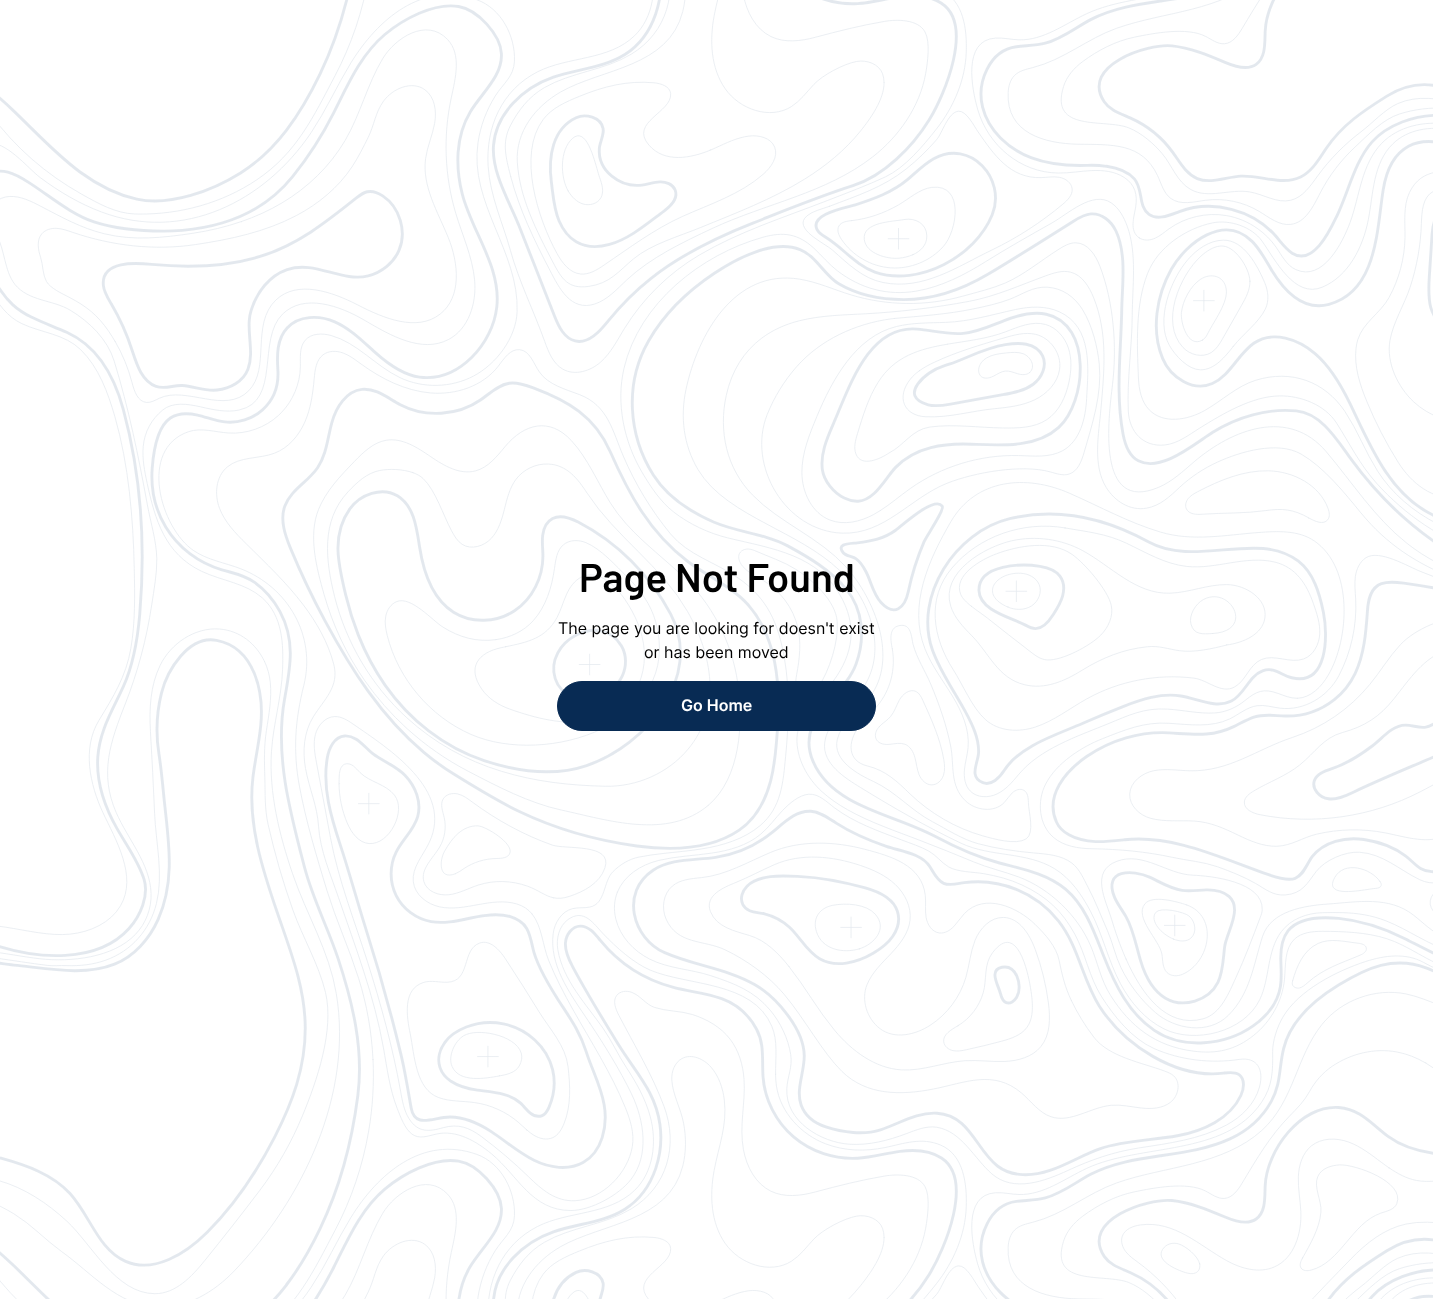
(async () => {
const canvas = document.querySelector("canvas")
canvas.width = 1433
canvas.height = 1299
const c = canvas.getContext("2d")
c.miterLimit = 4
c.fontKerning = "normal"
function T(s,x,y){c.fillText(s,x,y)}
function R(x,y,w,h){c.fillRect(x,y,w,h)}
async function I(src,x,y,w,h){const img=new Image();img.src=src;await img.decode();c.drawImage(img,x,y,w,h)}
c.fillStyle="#fff"
R(0,0,1433,1299)
await I("1.png",0,0,1433,1299)
c.font="600 40px Barlow"
c.fillStyle="#000"
T("Page Not Found",579,592)
c.font="16px Inter"
T("The page you are looking for doesn't exist",558,634)
T("or has been moved",644,658)
c.fillStyle="#082b54"
c.beginPath()
c.roundRect(557.5,681.5,318,49,24.5)
c.fill()
c.strokeStyle="#082b54"
c.stroke()
c.font="600 16px Inter"
c.fillStyle="#fff"
T("Go Home",681,711)
})()
